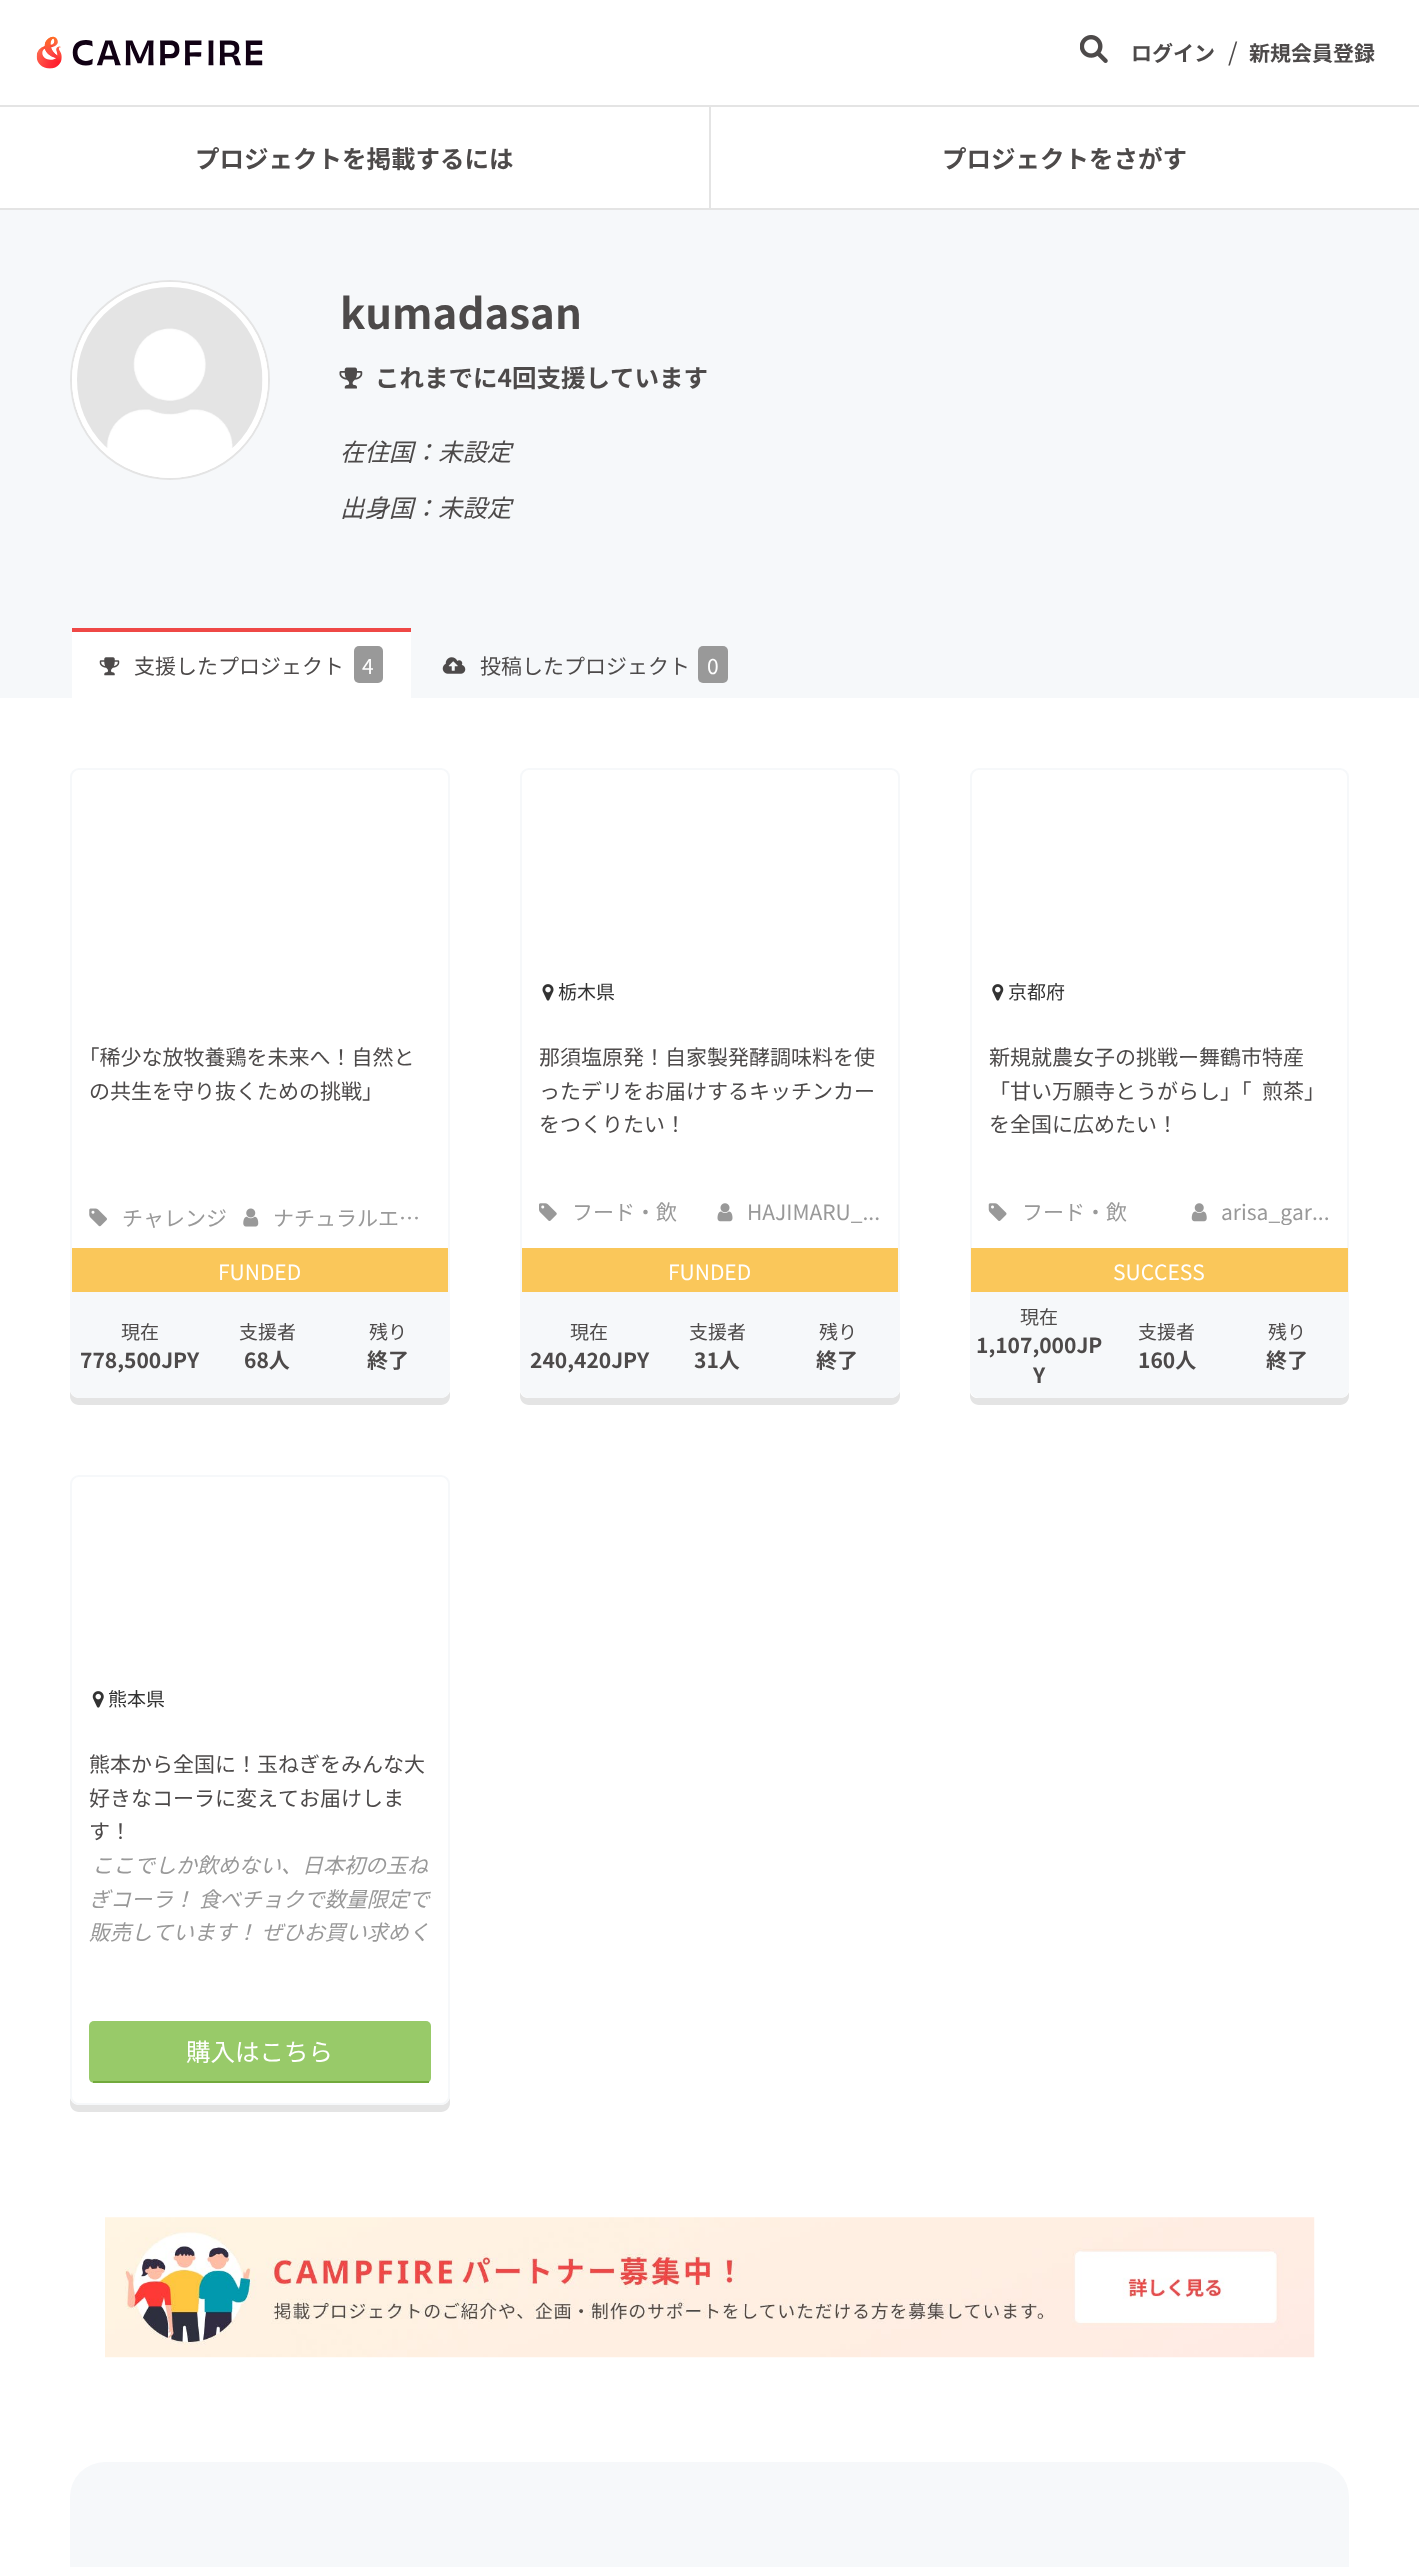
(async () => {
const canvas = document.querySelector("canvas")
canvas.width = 1419
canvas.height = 2567
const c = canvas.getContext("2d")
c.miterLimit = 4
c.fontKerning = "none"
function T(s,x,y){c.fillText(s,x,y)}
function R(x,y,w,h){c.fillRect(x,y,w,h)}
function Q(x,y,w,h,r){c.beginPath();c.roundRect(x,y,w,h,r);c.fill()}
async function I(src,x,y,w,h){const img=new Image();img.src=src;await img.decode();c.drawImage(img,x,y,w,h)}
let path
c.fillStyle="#fff"
R(0,0,1419,2567)
await I("1.png",36,36,227,33)
await I("2.png",1080,35,28,28)
c.font="bold 21px Noto Sans JP"
c.fillStyle="#4d4a4a"
T("ログイン",1131,61)
c.font="24.5px Noto Sans JP"
T("/",1228,61)
c.font="bold 21px Noto Sans JP"
T("新規会員登録",1249,61)
c.fillStyle="#e4e4e4"
R(0,105,709,2)
R(0,208,709,2)
c.font="bold 24.5px Noto Sans JP"
c.fillStyle="#4d4a4a"
T("プロジェクトを掲載するには",195,168)
c.fillStyle="#e4e4e4"
R(709,105,2,105)
R(711,105,708,2)
R(711,208,708,2)
c.fillStyle="#4d4a4a"
T("プロジェクトをさがす",942,168)
c.fillStyle="#f6f8fa"
R(0,210,1419,488)
c.fillStyle="#fff"
c.beginPath()
c.arc(170,380,99,0,7)
c.fill()
c.strokeStyle="#e4e4e4"
c.lineWidth=2
c.stroke()
c.beginPath()
c.arc(170,380,95.5,0,7)
c.strokeStyle="#fff"
c.lineWidth=5
c.stroke()
await I("3.png",77,287,186,161)
c.font="bold 42px Noto Sans JP"
c.fillStyle="#4d4a4a"
T("kumadasan",340,329)
await I("4.png",339,367,24,22)
c.font="bold 24.5px Noto Sans JP"
T("これまでに4回支援しています",375,387)
c.font="italic 24.5px Noto Sans JP"
T("在住国：未設定",340,461)
T("出身国：未設定",340,517)
c.fillStyle="#fff"
R(72,632,339,66)
c.fillStyle="#ef4846"
R(72,628,339,4)
await I("5.png",99,657,21,19)
c.font="21px Noto Sans JP"
c.fillStyle="#4d4a4a"
T("支援したプロジェクト",134,674)
c.fillStyle="#999"
Q(354,646,29,37,5)
c.fillStyle="#fff"
T("4",362,674)
await I("6.png",442,657,24,17)
c.fillStyle="#4d4a4a"
T("投稿したプロジェクト",480,674)
c.fillStyle="#999"
Q(698,646,30,37,5)
c.fillStyle="#fff"
T("0",707,674)
c.fillStyle="#e4e4e4"
path = new Path2D("M70 1390v6c0 5 4 9 9 9h362c5 0 9-4 9-9v-614v608c0 4-4 8-9 8h-362c-5 0-9-4-9-8z")
c.fill(path)
c.fillStyle="#fff"
c.beginPath()
c.roundRect(71,769,378,628,8)
c.fill()
c.strokeStyle="#f6f8fa"
c.lineWidth=2
c.stroke()
c.fillStyle="#4d4a4a"
T("｢稀少な放牧養鶏を未来へ！自然と",89,1065)
T("の共生を守り抜くための挑戦｣",89,1099)
await I("7.png",89,1208,18,19)
c.fillStyle="#999"
T("チャレンジ",122,1226)
await I("8.png",243,1208,16,19)
T("ナチュラルエ…",273,1226)
c.fillStyle="#fac75a"
R(72,1248,376,44)
c.fillStyle="#fff"
T("FUNDED",218,1280)
c.fillStyle="#f6f8fa"
c.beginPath()
c.roundRect(72,1292,376,105,[0,0,7,7])
c.fill()
c.font="19px Noto Sans JP"
c.fillStyle="#4d4a4a"
T("現在",121,1339)
c.font="bold 21px Noto Sans JP"
T("778,500JPY",80,1368)
c.font="19px Noto Sans JP"
T("支援者",239,1339)
c.font="bold 21px Noto Sans JP"
T("68人",244,1368)
c.font="19px Noto Sans JP"
T("残り",369,1339)
c.font="bold 21px Noto Sans JP"
T("終了",367,1368)
c.fillStyle="#e4e4e4"
path = new Path2D("M520 1392v4c0 5 4 9 9 9h362c5 0 9-4 9-9v-612v-3v609c0 4-4 8-9 8h-363c-4 0-7-3-8-6z")
c.fill(path)
c.fillStyle="#fff"
c.beginPath()
c.roundRect(521,769,378,628,8)
c.fill()
c.stroke()
await I("9.png",542,984,12,17)
c.font="19px Noto Sans JP"
c.fillStyle="#333"
T("栃木県",558,999)
c.font="21px Noto Sans JP"
c.fillStyle="#4d4a4a"
T("那須塩原発！自家製発酵調味料を使",539,1065)
T("ったデリをお届けするキッチンカー",539,1099)
T("をつくりたい！",539,1132)
await I("10.png",539,1203,18,18)
c.fillStyle="#999"
T("フード・飲",572,1220)
await I("11.png",717,1203,16,19)
T("HAJIMARU_...",747,1220)
c.fillStyle="#fac75a"
R(522,1248,376,44)
c.fillStyle="#fff"
T("FUNDED",668,1280)
c.fillStyle="#f6f8fa"
c.beginPath()
c.roundRect(522,1292,376,105,[0,0,7,7])
c.fill()
c.font="19px Noto Sans JP"
c.fillStyle="#4d4a4a"
T("現在",570,1339)
c.font="bold 21px Noto Sans JP"
T("240,420JPY",530,1368)
c.font="19px Noto Sans JP"
T("支援者",689,1339)
c.font="bold 21px Noto Sans JP"
T("31人",694,1368)
c.font="19px Noto Sans JP"
T("残り",819,1339)
c.font="bold 21px Noto Sans JP"
T("終了",816,1368)
c.fillStyle="#e4e4e4"
path = new Path2D("M970 1392v4c0 5 4 9 9 9h361c5 0 9-4 9-9v-4c-1 3-4 6-9 6h-362c-4 0-7-2-8-6z")
c.fill(path)
c.fillStyle="#fff"
c.beginPath()
c.roundRect(971,769,377,628,8)
c.fill()
c.stroke()
await I("12.png",992,984,12,17)
c.font="19px Noto Sans JP"
c.fillStyle="#333"
T("京都府",1008,999)
c.font="21px Noto Sans JP"
c.fillStyle="#4d4a4a"
T("新規就農女子の挑戦ー舞鶴市特産",989,1065)
T("「甘い万願寺とうがらし」「",989,1099)
T("煎茶」",1262,1099)
T("を全国に広めたい！",989,1132)
await I("13.png",988,1203,19,18)
c.fillStyle="#999"
T("フード・飲",1022,1220)
await I("14.png",1191,1203,16,19)
c.save()
c.beginPath()
c.rect(1143,1195,187,30)
c.clip()
T("arisa_gar...",1221,1220)
c.restore()
c.fillStyle="#fac75a"
R(971,1248,377,44)
c.fillStyle="#fff"
T("SUCCESS",1113,1280)
c.fillStyle="#f6f8fa"
c.beginPath()
c.roundRect(971,1292,377,105,[0,0,7,7])
c.fill()
c.font="19px Noto Sans JP"
c.fillStyle="#4d4a4a"
T("現在",1020,1324)
c.font="bold 21px Noto Sans JP"
T("1,107,000JP",976,1353)
T("Y",1033,1383)
c.font="19px Noto Sans JP"
T("支援者",1138,1339)
c.font="bold 21px Noto Sans JP"
T("160人",1138,1368)
c.font="19px Noto Sans JP"
T("残り",1268,1339)
c.font="bold 21px Noto Sans JP"
T("終了",1266,1368)
c.fillStyle="#e4e4e4"
path = new Path2D("M70 2096v7c0 5 4 9 9 9h362c5 0 9-4 9-9v-614v607c0 5-4 9-9 9h-362c-5 0-9-4-9-9z")
c.fill(path)
c.fillStyle="#fff"
c.beginPath()
c.roundRect(71,1476,378,628,8)
c.fill()
c.stroke()
await I("15.png",92,1691,12,17)
c.font="19px Noto Sans JP"
c.fillStyle="#333"
T("熊本県",108,1706)
c.font="21px Noto Sans JP"
c.fillStyle="#4d4a4a"
T("熊本から全国に！玉ねぎをみんな大",89,1772)
T("好きなコーラに変えてお届けしま",89,1806)
T("す！",89,1839)
c.font="italic 21px Noto Sans JP"
c.fillStyle="#999"
T("ここでしか飲めない、日本初の玉ね",92,1873)
T("ぎコーラ！ 食べチョクで数量限定で",89,1907)
T("販売しています！ ぜひお買い求めく",89,1940)
c.fillStyle="#98ca69"
Q(89,2021,342,62,5)
c.fillStyle="#72aa3c"
R(93,2081,336,2)
c.font="24.5px Noto Sans JP"
c.fillStyle="#fff"
T("購入はこちら",186,2061)
await I("16.png",105,2217,1210,141)
c.fillStyle="#f6f8fa"
Q(70,2462,1279,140,35)
})()
